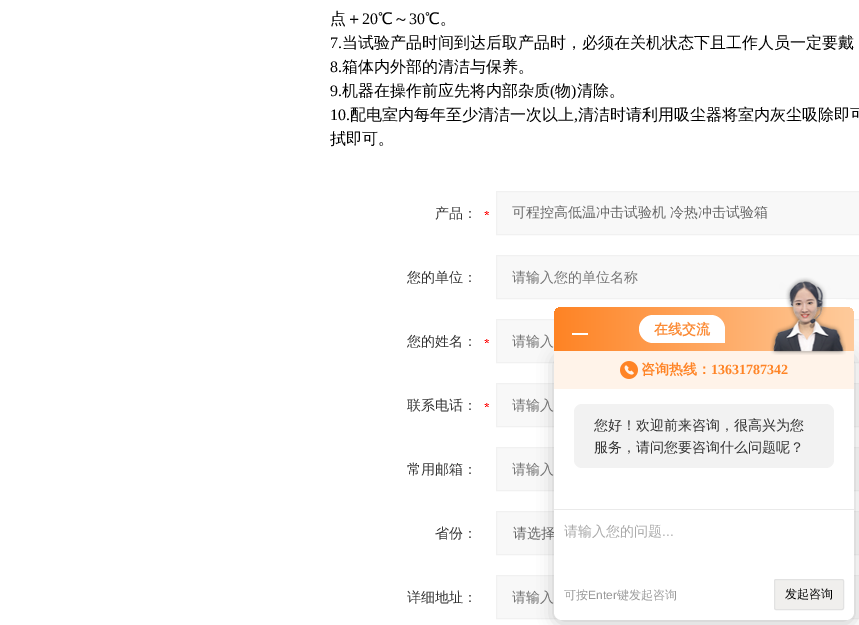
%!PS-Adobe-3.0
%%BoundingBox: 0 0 859 625
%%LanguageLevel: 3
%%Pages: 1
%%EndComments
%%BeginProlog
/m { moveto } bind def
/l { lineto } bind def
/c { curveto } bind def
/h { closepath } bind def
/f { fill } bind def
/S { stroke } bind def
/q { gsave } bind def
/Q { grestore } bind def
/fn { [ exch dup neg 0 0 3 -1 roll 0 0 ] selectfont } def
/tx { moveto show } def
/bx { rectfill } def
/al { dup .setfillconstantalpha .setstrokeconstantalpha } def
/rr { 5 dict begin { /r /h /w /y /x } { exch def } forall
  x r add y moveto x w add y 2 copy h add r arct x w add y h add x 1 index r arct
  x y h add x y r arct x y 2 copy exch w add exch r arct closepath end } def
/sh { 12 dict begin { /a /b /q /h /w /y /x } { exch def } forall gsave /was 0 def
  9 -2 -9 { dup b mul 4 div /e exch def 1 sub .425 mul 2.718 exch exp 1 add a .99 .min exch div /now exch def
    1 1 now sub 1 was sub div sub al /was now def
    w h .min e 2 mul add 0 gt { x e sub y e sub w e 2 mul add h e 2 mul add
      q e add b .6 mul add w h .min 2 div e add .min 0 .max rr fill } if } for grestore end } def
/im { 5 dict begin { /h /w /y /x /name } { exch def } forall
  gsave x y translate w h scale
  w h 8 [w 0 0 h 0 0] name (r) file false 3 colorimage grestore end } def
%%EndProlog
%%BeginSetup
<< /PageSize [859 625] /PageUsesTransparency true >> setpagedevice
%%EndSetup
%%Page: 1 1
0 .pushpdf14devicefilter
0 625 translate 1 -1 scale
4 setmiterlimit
1 setgray
0 0 859 625 bx
/WenQuanYiZenHei-Medium 16 fn
0 setgray
(点＋) 330 24 tx
/LiberationSerif-Regular 16 fn
(20) 362 24 tx
/WenQuanYiZenHei-Medium 16 fn
(℃～) 378 24 tx
/LiberationSerif-Regular 16 fn
(30) 409 24 tx
/WenQuanYiZenHei-Medium 16 fn
(℃。) 425 24 tx
/LiberationSerif-Regular 16 fn
(7.) 330 48 tx
/WenQuanYiZenHei-Medium 16 fn
(当试验产品时间到达后取产品时，必须在关机状态下且工作人员一定要戴) 342 48 tx
/LiberationSerif-Regular 16 fn
(8.) 330 72 tx
/WenQuanYiZenHei-Medium 16 fn
(箱体内外部的清洁与保养。) 342 72 tx
/LiberationSerif-Regular 16 fn
(9.) 330 96 tx
/WenQuanYiZenHei-Medium 16 fn
(机器在操作前应先将内部杂质) 342 96 tx
/LiberationSerif-Regular 16 fn
(\() 550 96 tx
/WenQuanYiZenHei-Medium 16 fn
(物) 555 96 tx
/LiberationSerif-Regular 16 fn
(\)) 571 96 tx
/WenQuanYiZenHei-Medium 16 fn
(清除。) 577 96 tx
/LiberationSerif-Regular 16 fn
(10.) 330 120 tx
/WenQuanYiZenHei-Medium 16 fn
(配电室内每年至少清洁一次以上) 350 120 tx
/LiberationSerif-Regular 16 fn
(,) 574 120 tx
/WenQuanYiZenHei-Medium 16 fn
(清洁时请利用吸尘器将室内灰尘吸除即可) 578 120 tx
(拭即可。) 330 144 tx
(image0.raw) 484 211 5 4 im
/WenQuanYiZenHei-Medium 14 fn
0.2 setgray
(产品：) 435 218 tx
0.973 setgray
496.5 191.5 m 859.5 191.5 l 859.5 234.5 l 496.5 234.5 l h q f Q
0.945 setgray
S
0.4 setgray
(可程控高低温冲击试验机 冷热冲击试验箱) 512 217 tx
0.2 setgray
(您的单位：) 407 282 tx
0.973 setgray
496.5 255.5 m 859.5 255.5 l 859.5 298.5 l 496.5 298.5 l h q f Q
0.945 setgray
S
0.459 setgray
(请输入您的单位名称) 512 282 tx
(image0.raw) 484 339 5 4 im
0.2 setgray
(您的姓名：) 407 346 tx
0.973 setgray
496.5 319.5 m 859.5 319.5 l 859.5 362.5 l 496.5 362.5 l h q f Q
0.945 setgray
S
0.459 setgray
(请输入) 512 346 tx
(image0.raw) 484 403 5 4 im
0.2 setgray
(联系电话：) 407 410 tx
0.973 setgray
496.5 383.5 m 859.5 383.5 l 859.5 426.5 l 496.5 426.5 l h q f Q
0.945 setgray
S
0.459 setgray
(请输入) 512 410 tx
0.2 setgray
(常用邮箱：) 407 474 tx
0.973 setgray
496.5 447.5 m 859.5 447.5 l 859.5 490.5 l 496.5 490.5 l h q f Q
0.945 setgray
S
0.459 setgray
(请输入) 512 474 tx
0.2 setgray
(省份：) 435 538 tx
0.973 setgray
496.5 511.5 m 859.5 511.5 l 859.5 554.5 l 496.5 554.5 l h q f Q
0.945 setgray
S
0.4 setgray
(请选择) 513 538 tx
0.2 setgray
(详细地址：) 407 602 tx
0.973 setgray
496.5 575.5 m 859.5 575.5 l 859.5 618.5 l 496.5 618.5 l h q f Q
0.945 setgray
S
0.459 setgray
(请输入) 512 602 tx
0 setgray
554 355 300 269 8 8 0.2 sh
q 562 307 m 846 307 l 850.5 307 854 310.5 854 315 c 854 351 l 554 351 l 554 315 l 554 310.5 557.5 307 562 307 c h clip newpath
<< /ShadingType 2 /ColorSpace /DeviceRGB /Coords [554 329 854 329] /Extend [true true] /Function << /FunctionType 2 /Domain [0 1] /C0 [1 0.514 0.141] /C1 [0.996 0.796 0.612] /N 1 >> >> shfill Q
1 setgray
572 333 16 2 bx
653 315 m 711 315 l 718.5 315 725 321.5 725 329 c 725 343 l 653 343 l 645.5 343 639 336.5 639 329 c 639 321.5 645.5 315 653 315 c h f
/WenQuanYiZenHei-Bold 14 fn
0.984 0.545 0.212 setrgbcolor
(在线交流) 654 334 tx
1 setgray
554 351 m 854 351 l 854 612 l 854 616.5 850.5 620 846 620 c 562 620 l 557.5 620 554 616.5 554 612 c h f
1 0.953 0.914 setrgbcolor
554 351 300 38 bx
(image1.raw) 770 277 76 78 im
(image2.raw) 620 361 18 18 im
1 0.518 0.149 setrgbcolor
(咨询热线：) 641 374 tx
/LiberationSerif-Bold 14 fn
(13631787342) 711 374 tx
0.949 setgray
574 404 260 64 8 rr f
/WenQuanYiZenHei-Medium 14 fn
0.2 setgray
(您好！欢迎前来咨询，很高兴为您) 594 430 tx
(服务，请问您要咨询什么问题呢？) 594 452 tx
0.918 setgray
554 509 300 1 bx
0.667 setgray
(请输入您的问题) 564 536 tx
/LiberationSans-Regular 14 fn
(...) 662 536 tx
/WenQuanYiZenHei-Medium 12 fn
0.6 setgray
(可按) 564 599 tx
/LiberationSans-Regular 12 fn
(Enter) 588 599 tx
/WenQuanYiZenHei-Medium 12 fn
(键发起咨询) 617 599 tx
0.941 0.937 0.929 setrgbcolor
774.5 579.5 69 30 1.5 rr q f Q
0.886 setgray
S
0 setgray
(发起咨询) 785 598 tx
.poppdf14devicefilter showpage
%%EOF
